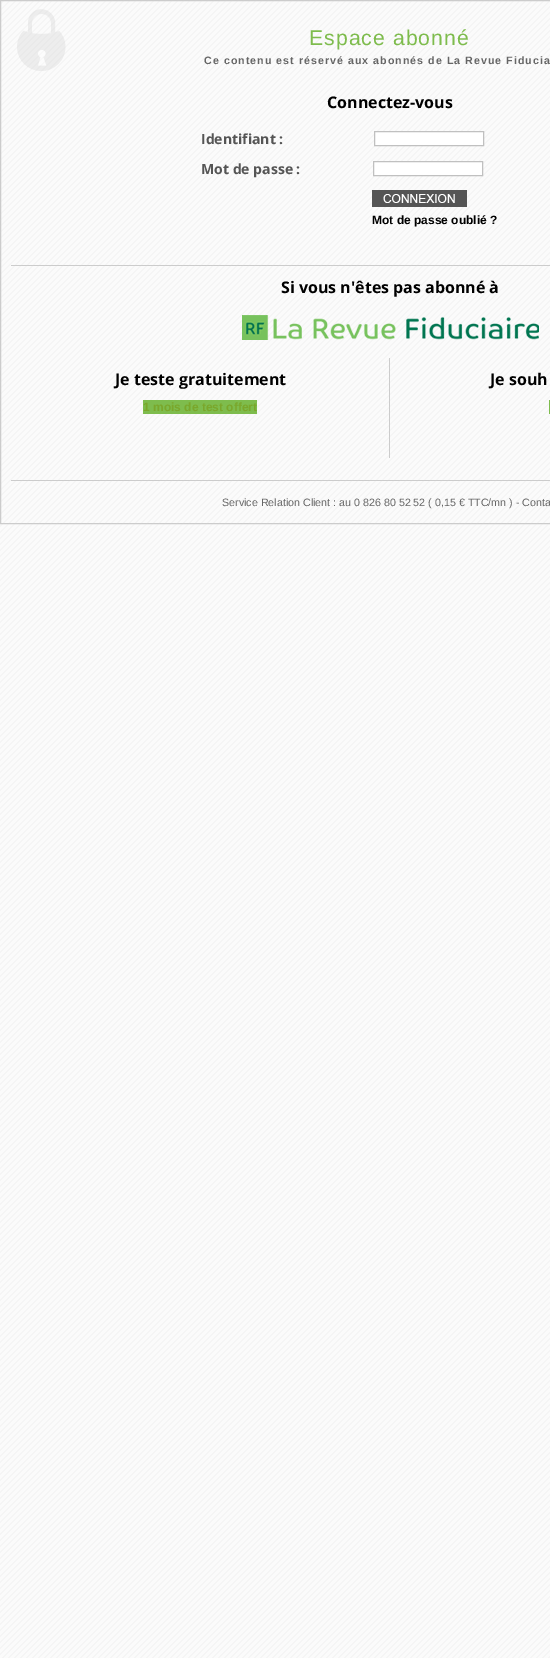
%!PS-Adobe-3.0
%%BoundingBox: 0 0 550 1658
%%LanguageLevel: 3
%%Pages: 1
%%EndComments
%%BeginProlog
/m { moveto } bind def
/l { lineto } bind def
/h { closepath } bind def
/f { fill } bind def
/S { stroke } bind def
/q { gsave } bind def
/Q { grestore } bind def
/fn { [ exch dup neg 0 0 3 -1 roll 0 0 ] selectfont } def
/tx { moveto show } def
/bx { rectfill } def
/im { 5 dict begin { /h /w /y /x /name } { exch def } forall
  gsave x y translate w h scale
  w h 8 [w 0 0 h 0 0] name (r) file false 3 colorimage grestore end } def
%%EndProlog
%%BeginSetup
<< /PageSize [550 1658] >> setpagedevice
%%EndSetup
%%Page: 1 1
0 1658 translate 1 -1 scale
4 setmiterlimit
1 setgray
0 0 550 1658 bx
(image0.raw) 0 1 550 1657 im
(image1.raw) 17 9 49 62 im
0.8 setgray
0.5 0.5 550 523 rectstroke
/LiberationSans-Regular 21.25 fn
0.494 0.737 0.302 setrgbcolor
309 45 m 1 0 (Espace abonné) ashow
/LiberationSans-Bold 10.7 fn
0.4 setgray
204 64 m 1 0 (Ce contenu est réservé aux abonnés de La Revue Fiducia) ashow
/OpenSans-Bold 16 fn
0 setgray
(Connectez-vous) 327 108 tx
/OpenSans-Bold 14 fn
0.333 setgray
(Identifiant :) 201 144 tx
1 setgray
374.5 131.5 m 483.5 131.5 l 483.5 145.5 l 374.5 145.5 l h q f Q
0.753 setgray
S
0.333 setgray
(Mot de passe :) 201 174 tx
1 setgray
373.5 161.5 m 482.5 161.5 l 482.5 175.5 l 373.5 175.5 l h q f Q
0.753 setgray
S
(image2.raw) 372 190 95 17 im
/LiberationSans-Bold 12 fn
0 setgray
(Mot de passe oublié ?) 372 224 tx
0.8 setgray
11 265 539 1 bx
/OpenSans-Bold 16 fn
0 setgray
(Si vous n'êtes pas abonné à) 281 293 tx
(image3.raw) 242 315 297 25 im
(Je teste gratuitement) 115 385 tx
0.494 0.737 0.302 setrgbcolor
143 400 114 14 bx
/LiberationSans-Bold 12 fn
0.478 0.655 0.169 setrgbcolor
(1 mois de test offert) 143 411 tx
0.8 setgray
389 358 1 100 bx
/OpenSans-Bold 16 fn
0 setgray
(Je souh) 490 385 tx
0.494 0.737 0.302 setrgbcolor
549 400 1 14 bx
0.8 setgray
11 480 539 1 bx
/LiberationSans-Regular 10.7 fn
0.4 setgray
(Service Relation Client : au 0 826 80 52 52 \( 0,15 € TTC/mn \) - Conta) 222 506 tx
showpage
%%EOF
